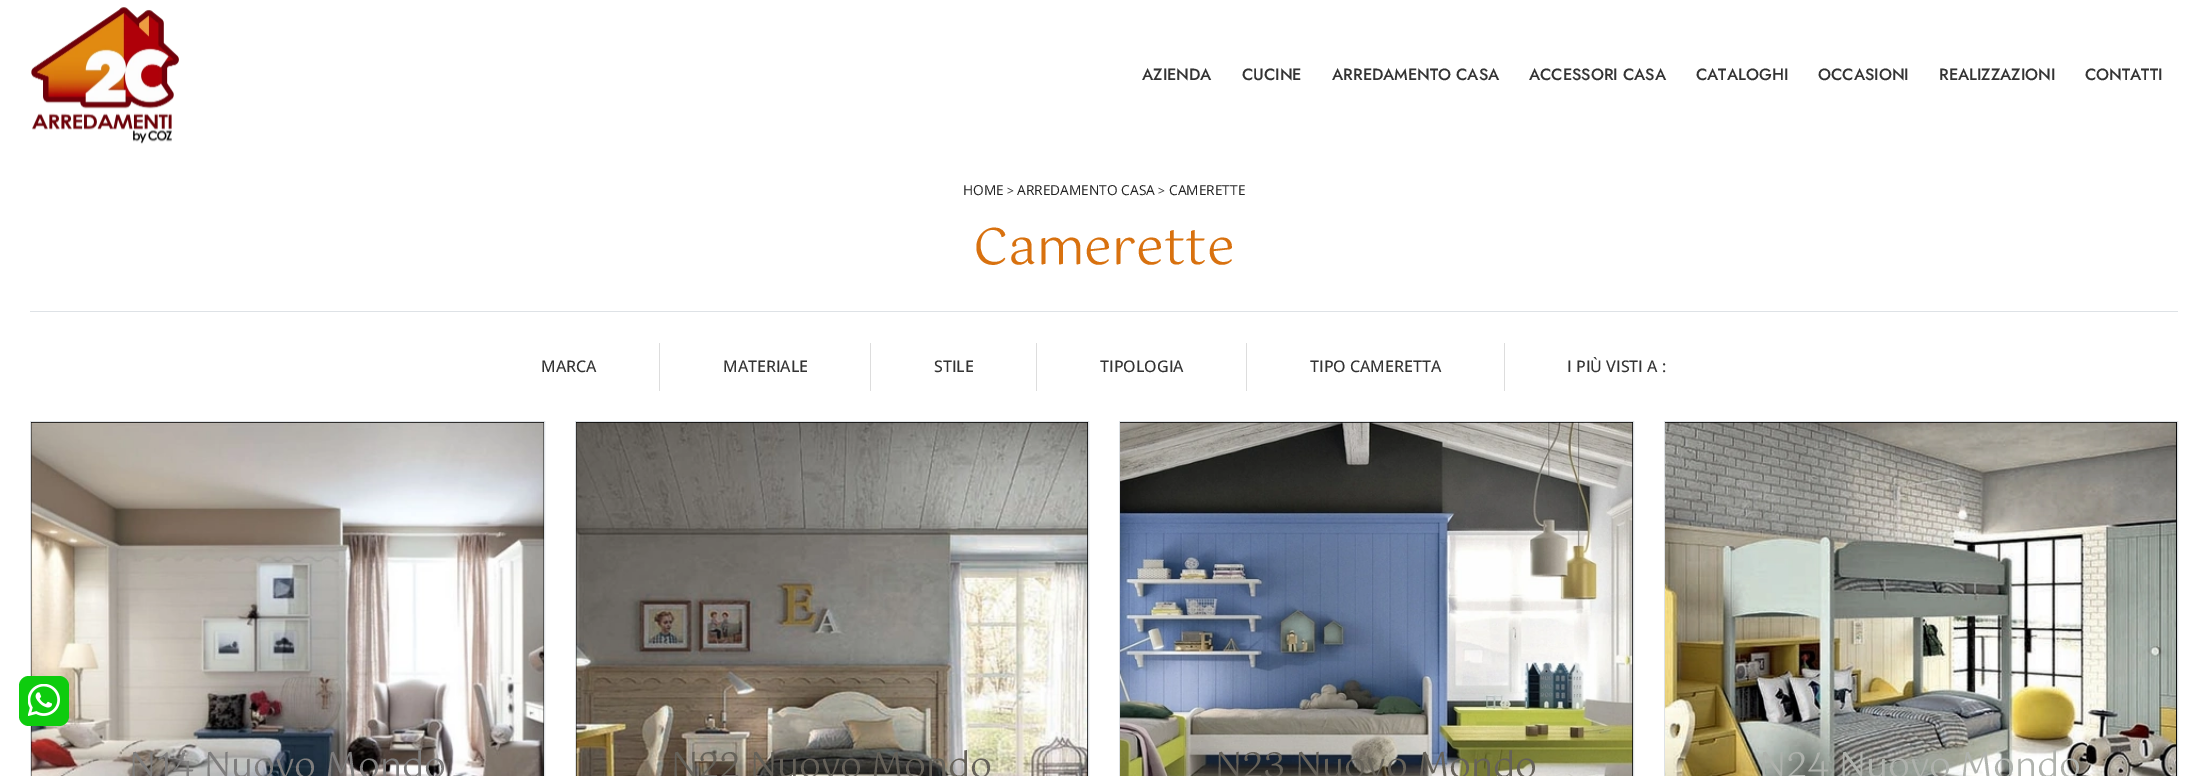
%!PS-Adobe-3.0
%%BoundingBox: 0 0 2207 776
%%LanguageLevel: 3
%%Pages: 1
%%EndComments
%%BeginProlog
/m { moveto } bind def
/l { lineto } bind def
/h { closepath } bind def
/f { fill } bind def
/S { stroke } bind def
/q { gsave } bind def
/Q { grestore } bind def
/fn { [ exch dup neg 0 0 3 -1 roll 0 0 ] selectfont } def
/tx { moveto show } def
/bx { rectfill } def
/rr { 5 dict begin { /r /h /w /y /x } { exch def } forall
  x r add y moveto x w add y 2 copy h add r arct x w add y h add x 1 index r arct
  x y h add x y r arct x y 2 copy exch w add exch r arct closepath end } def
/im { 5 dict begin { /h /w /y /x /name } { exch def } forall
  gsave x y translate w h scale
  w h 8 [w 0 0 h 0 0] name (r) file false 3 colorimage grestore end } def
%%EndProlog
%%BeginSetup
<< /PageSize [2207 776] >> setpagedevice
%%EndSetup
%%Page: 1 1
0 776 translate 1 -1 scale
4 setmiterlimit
1 setgray
0 0 2207 776 bx
(image0.raw) 31 7 148 137 im
/Jost-Medium 16.25 fn
0.2 setgray
(AZIENDA) 1142 80 tx
(CUCINE) 1242 80 tx
(ARREDAMENTO CASA) 1332 80 tx
(ACCESSORI CASA) 1529 80 tx
(CATALOGHI) 1696 80 tx
(OCCASIONI) 1818 80 tx
(REALIZZAZIONI) 1939 80 tx
(CONTATTI) 2085 80 tx
0.871 0.886 0.902 setrgbcolor
30 311 2148 1 bx
/OpenSans-Regular 13.75 fn
0.133 setgray
(HOME) 963 195 tx
/OpenSans-Regular 12 fn
0.2 setgray
(>) 1007 195 tx
/OpenSans-Regular 13.75 fn
0.133 setgray
(ARREDAMENTO CASA) 1017 195 tx
/OpenSans-Regular 12 fn
0.2 setgray
(>) 1158 195 tx
/OpenSans-Regular 13.75 fn
0.133 setgray
(CAMERETTE) 1169 195 tx
/Gotu-Regular 50 fn
0.847 0.443 0.059 setrgbcolor
(Camerette) 973 264 tx
0 setgray
30.5 421.5 m 544.5 421.5 l 544.5 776.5 l 30.5 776.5 l h q f Q
0.871 0.886 0.902 setrgbcolor
S
(image2.raw) 31 422 513 354 im
0.055 0.8 0.055 setrgbcolor
19 676 50 50 10 rr f
(image1.raw) 28 684 32 32 im
0.867 setgray
659 343 1 48 bx
/OpenSans-Medium 16 fn
0.2 setgray
(MARCA) 541 372 tx
0.867 setgray
870 343 1 48 bx
0.2 setgray
(MATERIALE) 723 372 tx
0.867 setgray
1036 343 1 48 bx
0.2 setgray
(STILE) 934 372 tx
0.867 setgray
1246 343 1 48 bx
0.2 setgray
(TIPOLOGIA) 1100 372 tx
0.867 setgray
1504 343 1 48 bx
0.2 setgray
(TIPO CAMERETTA) 1310 372 tx
(I PIÙ VISTI A :) 1567 372 tx
/Gotu-Regular 35 fn
0.494 0.49 0.49 setrgbcolor
(N14 Nuovo Mondo) 129 777 tx
0 setgray
575.5 421.5 m 1088.5 421.5 l 1088.5 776.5 l 575.5 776.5 l h q f Q
0.871 0.886 0.902 setrgbcolor
S
(image3.raw) 576 422 512 354 im
0.396 0.38 0.349 setrgbcolor
(N22 Nuovo Mondo) 671 777 tx
0 setgray
1119.5 421.5 m 1633.5 421.5 l 1633.5 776.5 l 1119.5 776.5 l h q f Q
0.871 0.886 0.902 setrgbcolor
S
(image4.raw) 1120 422 513 354 im
0.396 0.38 0.349 setrgbcolor
(N23 Nuovo Mondo) 1215 777 tx
0 setgray
1664.5 421.5 m 2177.5 421.5 l 2177.5 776.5 l 1664.5 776.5 l h q f Q
0.871 0.886 0.902 setrgbcolor
S
(image5.raw) 1665 422 512 354 im
0.686 0.698 0.678 setrgbcolor
(N24 Nuovo Mondo) 1759 777 tx
showpage
%%EOF
